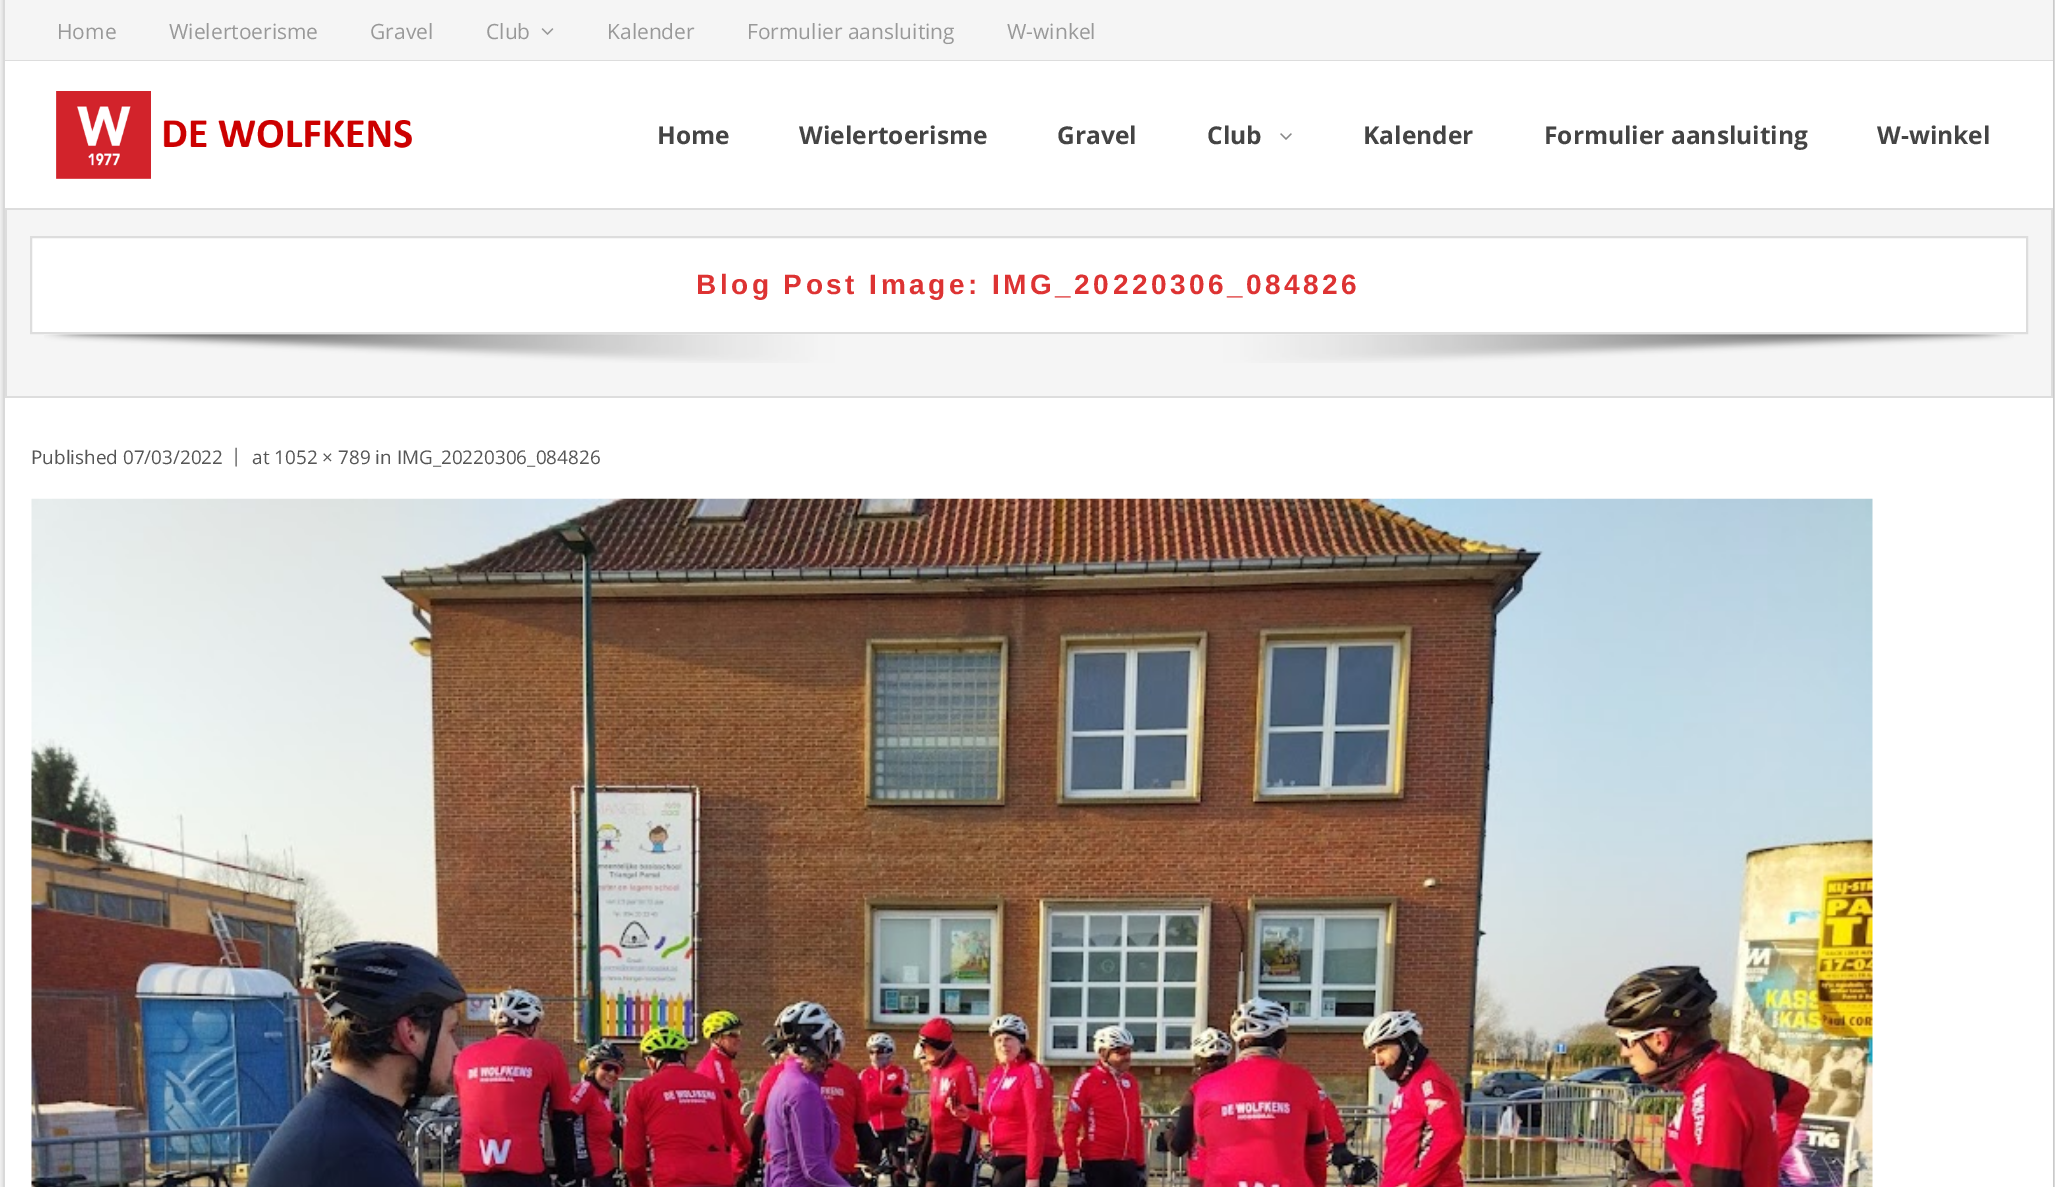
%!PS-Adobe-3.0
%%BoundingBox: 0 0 2055 1187
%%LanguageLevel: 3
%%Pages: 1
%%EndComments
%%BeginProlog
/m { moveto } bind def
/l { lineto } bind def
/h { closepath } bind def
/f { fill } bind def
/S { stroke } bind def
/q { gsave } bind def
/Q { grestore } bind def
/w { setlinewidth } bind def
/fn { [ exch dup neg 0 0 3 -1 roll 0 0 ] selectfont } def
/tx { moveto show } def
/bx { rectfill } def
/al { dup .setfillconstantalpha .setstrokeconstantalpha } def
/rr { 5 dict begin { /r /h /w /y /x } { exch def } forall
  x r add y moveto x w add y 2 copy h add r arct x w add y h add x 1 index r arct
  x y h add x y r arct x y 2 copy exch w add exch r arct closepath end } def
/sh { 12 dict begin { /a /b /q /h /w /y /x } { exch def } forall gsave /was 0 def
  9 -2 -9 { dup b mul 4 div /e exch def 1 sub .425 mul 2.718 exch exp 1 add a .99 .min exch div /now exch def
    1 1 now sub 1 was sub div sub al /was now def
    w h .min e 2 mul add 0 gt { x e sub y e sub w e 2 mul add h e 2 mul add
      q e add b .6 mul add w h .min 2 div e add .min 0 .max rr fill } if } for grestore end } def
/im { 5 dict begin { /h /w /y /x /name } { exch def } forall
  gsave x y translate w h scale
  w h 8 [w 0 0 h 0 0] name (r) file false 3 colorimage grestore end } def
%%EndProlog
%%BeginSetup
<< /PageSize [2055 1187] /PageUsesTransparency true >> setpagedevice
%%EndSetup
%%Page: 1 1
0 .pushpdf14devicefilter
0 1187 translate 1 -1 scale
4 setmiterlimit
1 setgray
0 0 2055 1187 bx
0 setgray
4 -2 2051 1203 0 4.5 0.3 sh
1 setgray
5 398 2048 789 bx
0.867 setgray
5 208 2048 2 bx
0.961 setgray
5 0 2048 60 bx
0.867 setgray
5 60 2048 1 bx
/OpenSans-Regular 21 fn
0.6 setgray
(Home) 57 39 tx
(Wielertoerisme) 169 39 tx
(Gravel) 370 39 tx
(Club) 486 39 tx
(image0.raw) 541 28 13 7 im
(Kalender) 607 39 tx
(Formulier aansluiting) 747 39 tx
(W-winkel) 1007 39 tx
1 setgray
5 61 2048 147 bx
(image1.raw) 56 91 356 88 im
/OpenSans-Bold 24.5 fn
0.267 setgray
(Home) 657 144 tx
(Wielertoerisme) 799 144 tx
(Gravel) 1057 144 tx
(Club) 1207 144 tx
(image2.raw) 1280 133 12 7 im
(Kalender) 1363 144 tx
(Formulier aansluiting) 1544 144 tx
(W-winkel) 1877 144 tx
0.961 setgray
7 210 2044 186 bx
0.867 setgray
2051 210 2 187 bx
5 396 2048 2 bx
5 210 2 187 bx
1 setgray
31 237 m 2027 237 l 2027 333 l 31 333 l h q f Q
0.867 setgray
2 w
S
/LiberationSans-Bold 28 fn
0.867 0.2 0.2 setrgbcolor
696 294 m 3.5 0 (Blog Post Image: IMG_20220306_084826) ashow
(image3.raw) 44 334 1970 29 im
/OpenSans-Regular 18.9 fn
0.333 setgray
(Published 07/03/2022) 31 464 tx
(|) 231 462 tx
(at 1052 × 789 in IMG_20220306_084826) 252 464 tx
(image4.raw) 31 498 1842 689 im
.poppdf14devicefilter showpage
%%EOF
